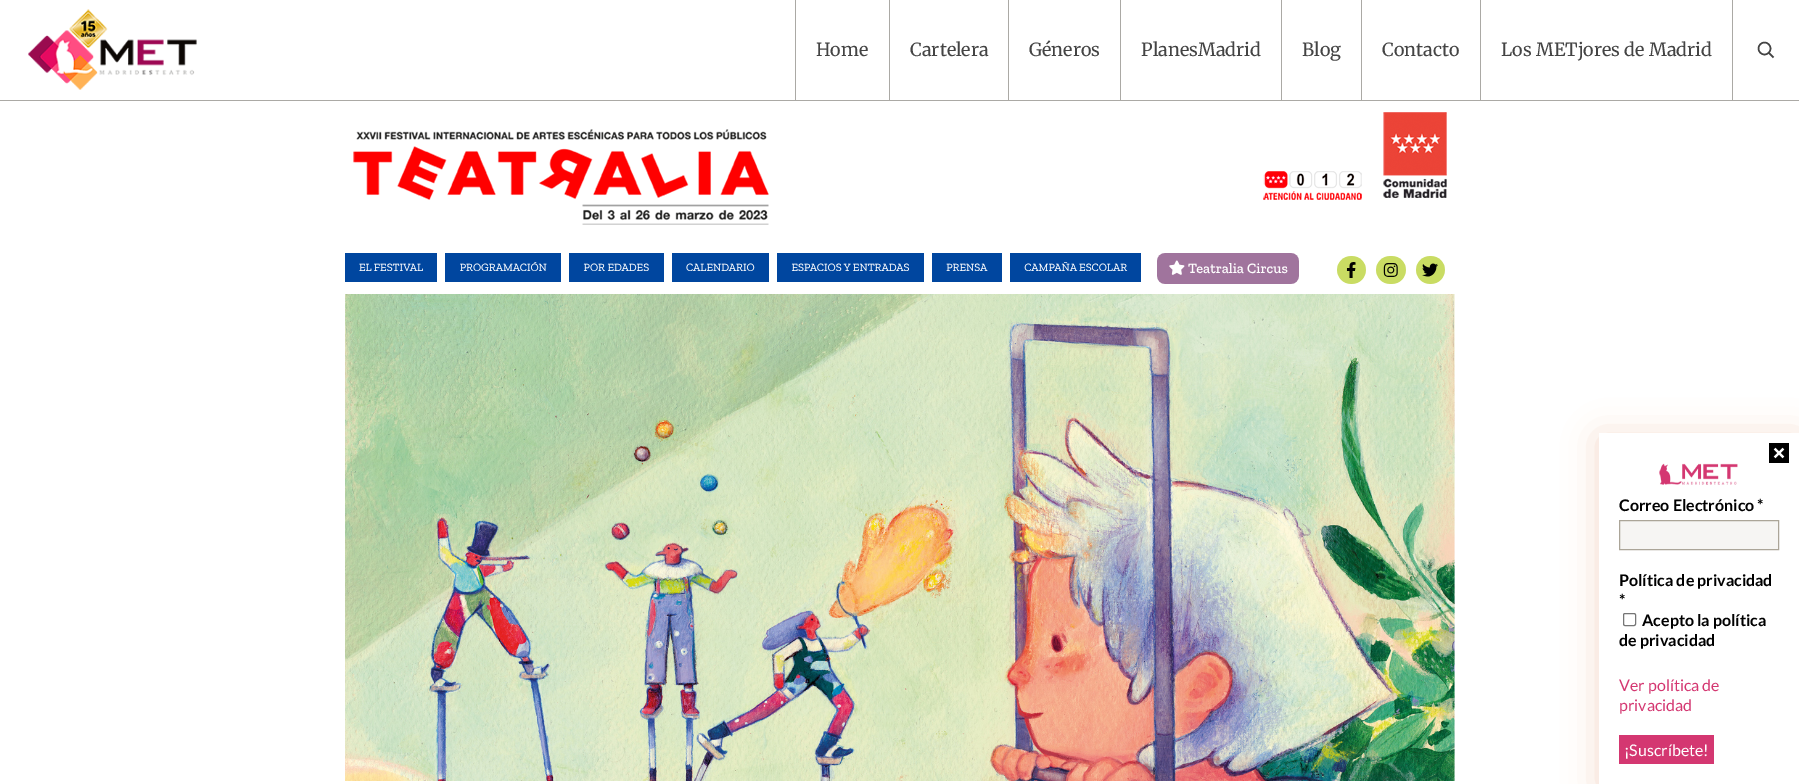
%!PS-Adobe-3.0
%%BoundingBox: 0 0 1799 784
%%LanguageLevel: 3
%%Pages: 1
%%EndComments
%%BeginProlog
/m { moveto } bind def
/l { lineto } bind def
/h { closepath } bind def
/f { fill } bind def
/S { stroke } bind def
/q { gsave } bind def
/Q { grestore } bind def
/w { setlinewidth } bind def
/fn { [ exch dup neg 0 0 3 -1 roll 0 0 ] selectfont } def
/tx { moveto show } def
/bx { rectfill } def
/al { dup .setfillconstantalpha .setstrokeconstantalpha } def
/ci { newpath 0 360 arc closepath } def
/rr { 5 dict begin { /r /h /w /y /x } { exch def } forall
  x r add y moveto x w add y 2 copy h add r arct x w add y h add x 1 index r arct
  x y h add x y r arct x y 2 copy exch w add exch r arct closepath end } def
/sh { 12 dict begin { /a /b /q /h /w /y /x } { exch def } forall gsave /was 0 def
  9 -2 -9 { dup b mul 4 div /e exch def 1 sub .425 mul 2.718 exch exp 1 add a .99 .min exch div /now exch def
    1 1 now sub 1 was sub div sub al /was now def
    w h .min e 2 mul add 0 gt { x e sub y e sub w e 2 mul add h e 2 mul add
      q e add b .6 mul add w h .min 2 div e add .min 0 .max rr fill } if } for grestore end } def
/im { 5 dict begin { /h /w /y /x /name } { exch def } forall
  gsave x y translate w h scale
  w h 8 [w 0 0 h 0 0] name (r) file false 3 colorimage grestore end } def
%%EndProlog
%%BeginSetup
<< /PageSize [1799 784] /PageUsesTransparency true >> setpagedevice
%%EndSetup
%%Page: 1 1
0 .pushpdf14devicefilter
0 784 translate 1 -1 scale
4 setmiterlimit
1 setgray
0 0 1799 784 bx
0.671 0.663 0.647 setrgbcolor
0 100 1799 1 bx
(image0.raw) 28 9 169 81 im
889 0 1 100 bx
795 0 1 100 bx
/Merriweather-Regular 18 fn
0.267 setgray
(Home) 816 56 tx
0.671 0.663 0.647 setrgbcolor
1008 0 1 100 bx
0.267 setgray
(Cartelera) 910 56 tx
0.671 0.663 0.647 setrgbcolor
1120 0 1 100 bx
0.267 setgray
(Géneros) 1029 56 tx
0.671 0.663 0.647 setrgbcolor
1281 0 1 100 bx
0.267 setgray
(PlanesMadrid) 1141 56 tx
0.671 0.663 0.647 setrgbcolor
1361 0 1 100 bx
0.267 setgray
(Blog) 1302 56 tx
0.671 0.663 0.647 setrgbcolor
1480 0 1 100 bx
0.267 setgray
(Contacto) 1382 56 tx
(Los METjores de Madrid) 1501 56 tx
0.671 0.663 0.647 setrgbcolor
1732 0 1 100 bx
0.267 setgray
1.5 w
1764.5 48.5 6 ci S
1768.5 52.5 m 1773.5 57.5 l S
(image1.raw) 345 112 1110 669 im
q
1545 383 m 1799 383 l 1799 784 l 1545 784 l h 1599 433 m 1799 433 l 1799 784 l 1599 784 l h eoclip newpath
0.765 0.255 0.008 setrgbcolor
1599 437 200 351 0 17.5 0.2 sh
Q
(image2.raw) 1769 443 20 20 im
(image3.raw) 1659 463 79 22 im
/Lato-Bold 16 fn
0 setgray
(Correo Electrónico *) 1619 511 tx
0.965 0.961 0.953 setrgbcolor
1619.5 520.5 m 1778.5 520.5 l 1778.5 549.5 l 1619.5 549.5 l h q f Q
0.671 0.647 0.596 setrgbcolor
1 w
S
0 setgray
(Política de privacidad) 1619 586 tx
(*) 1619 606 tx
0.463 setgray
1623.5 613.5 12 12 1.5 rr S
0 setgray
(Acepto la política) 1642 626 tx
(de privacidad) 1619 646 tx
/Lato-Regular 16 fn
0.831 0.216 0.443 setrgbcolor
(Ver política de) 1619 691 tx
(privacidad) 1619 711 tx
1619 735 95 29 bx
1 setgray
(¡Suscríbete!) 1624 756 tx
.poppdf14devicefilter showpage
%%EOF
